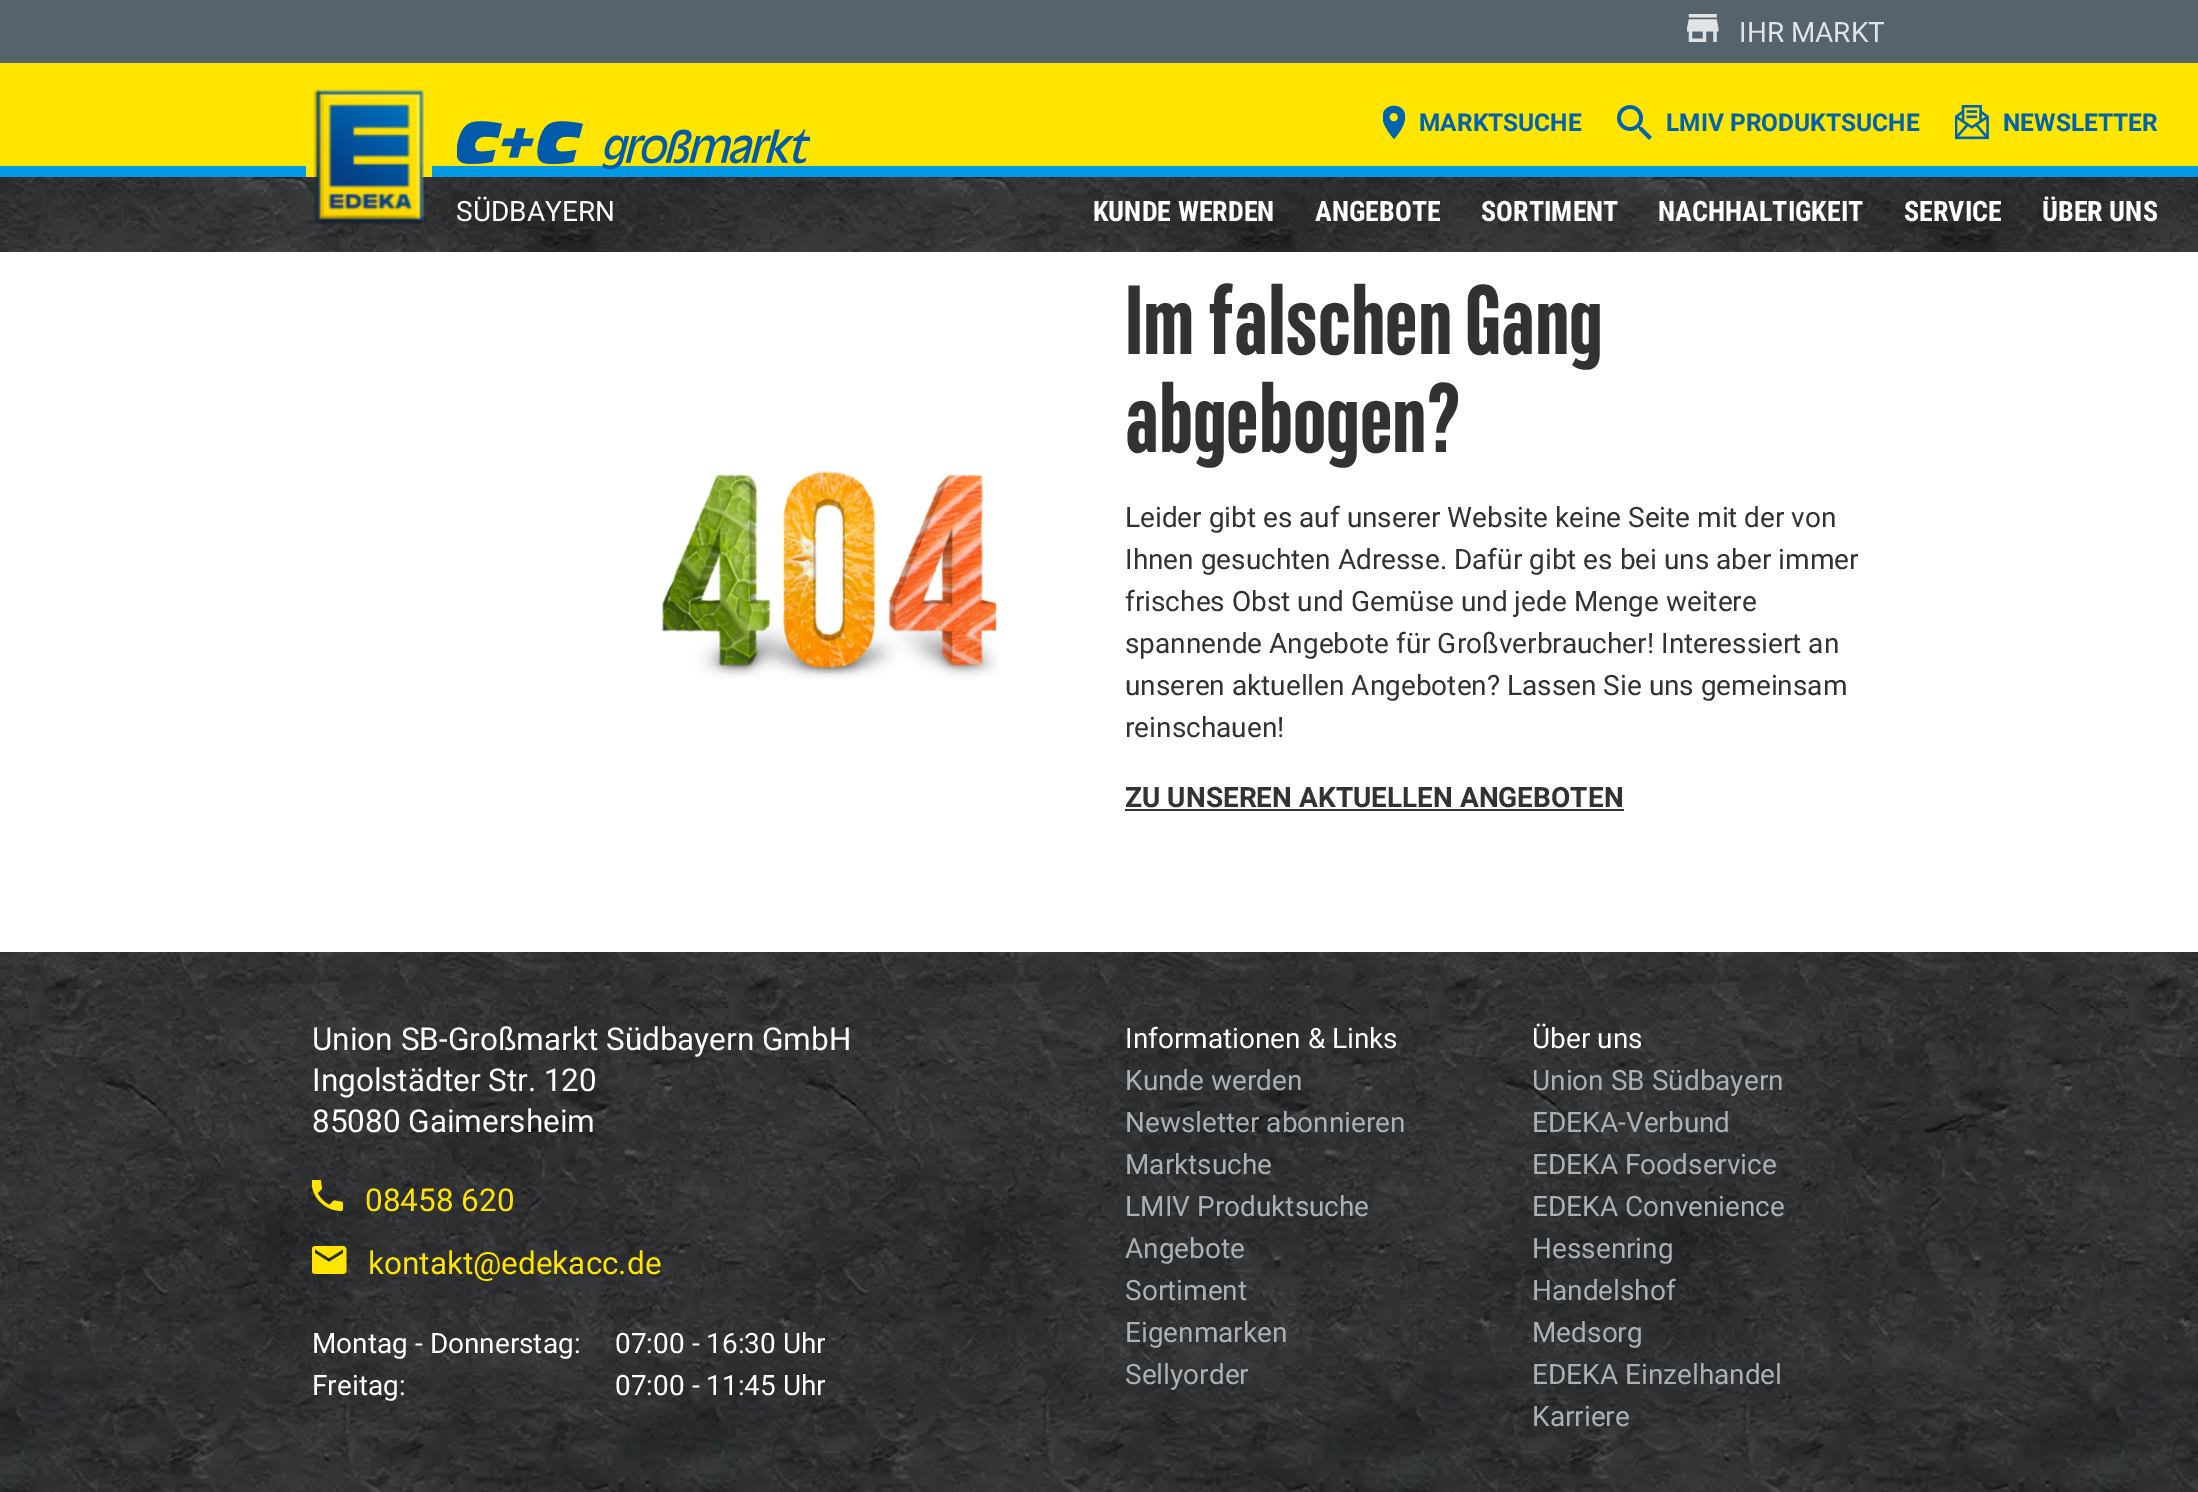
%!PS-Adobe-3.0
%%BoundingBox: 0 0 2198 1492
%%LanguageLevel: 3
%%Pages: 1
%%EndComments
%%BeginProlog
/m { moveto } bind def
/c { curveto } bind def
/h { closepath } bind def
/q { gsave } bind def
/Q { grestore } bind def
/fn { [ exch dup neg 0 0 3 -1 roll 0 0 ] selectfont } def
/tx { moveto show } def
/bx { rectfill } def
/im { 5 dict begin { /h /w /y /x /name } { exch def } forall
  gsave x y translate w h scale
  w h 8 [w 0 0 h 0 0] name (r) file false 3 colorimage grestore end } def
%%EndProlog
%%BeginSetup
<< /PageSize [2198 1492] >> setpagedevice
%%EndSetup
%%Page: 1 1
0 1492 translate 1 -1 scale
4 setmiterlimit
1 setgray
0 0 2198 1492 bx
(image0.raw) 0 952 2198 540 im
0.337 0.388 0.427 setrgbcolor
0 0 2198 63 bx
(image1.raw) 1687 14 32 28 im
/Roboto-Regular 28 fn
0.882 0.894 0.902 setrgbcolor
(IHR MARKT) 1739 42 tx
1 0.898 0 setrgbcolor
0 63 2198 103 bx
q
1383 105 22 35 rectclip
0 0.388 0.686 setrgbcolor
1382.5 117.5 m 1382.5 126 1394 139 1394 139 c 1424.5 104 1382.5 96.5 1382.5 117.5 c h 1389.5 117 m 1389.5 111.5 1398 111.5 1398 117 c 1398 123 1389.5 123 1389.5 117 c h eofill
Q
/Roboto-Bold 24.5 fn
0 0.388 0.686 setrgbcolor
(MARKTSUCHE) 1419 131 tx
(image2.raw) 1617 105 35 35 im
(LMIV PRODUKTSUCHE) 1666 131 tx
(image3.raw) 1955 105 34 35 im
(NEWSLETTER) 2003 131 tx
(image4.raw) 0 177 2198 75 im
/RobotoCondensed-Bold 28 fn
1 setgray
(KUNDE WERDEN) 1093 221 tx
(ANGEBOTE) 1315 221 tx
(SORTIMENT) 1481 221 tx
(NACHHALTIGKEIT) 1658 221 tx
(SERVICE) 1904 221 tx
(ÜBER UNS) 2042 221 tx
0 0.6 0.898 setrgbcolor
0 166 2198 11 bx
1 0.898 0 setrgbcolor
306 166 11 11 bx
422 166 10 11 bx
(image5.raw) 313 89 111 136 im
(image6.raw) 457 121 353 49 im
/Roboto-Regular 28 fn
1 setgray
(SÜDBAYERN) 456 221 tx
(image7.raw) 661 470 338 209 im
/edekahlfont-Bold 98 fn
0.188 0.196 0.2 setrgbcolor
(Im falschen Gang) 1125 354 tx
(abgebogen?) 1125 452 tx
/Roboto-Regular 28 fn
(Leider gibt es auf unserer Website keine Seite mit der von) 1125 527 tx
(Ihnen gesuchten Adresse. Dafür gibt es bei uns aber immer) 1125 569 tx
(frisches Obst und Gemüse und jede Menge weitere) 1125 611 tx
(spannende Angebote für Großverbraucher! Interessiert an) 1125 653 tx
(unseren aktuellen Angeboten? Lassen Sie uns gemeinsam) 1125 695 tx
(reinschauen!) 1125 737 tx
/Roboto-Bold 28 fn
(ZU UNSEREN AKTUELLEN ANGEBOTEN) 1125 807 tx
1125 809 499 2 bx
/Roboto-Regular 31.5 fn
1 setgray
(Union SB-Großmarkt Südbayern GmbH) 312 1050 tx
(Ingolstädter Str. 120) 312 1091 tx
(85080 Gaimersheim) 312 1132 tx
(image8.raw) 312 1180 31 31 im
1 0.898 0 setrgbcolor
(08458 620) 365 1211 tx
(image9.raw) 312 1246 35 28 im
(kontakt@edekacc.de) 368 1274 tx
/Roboto-Regular 28 fn
1 setgray
(Montag - Donnerstag:) 312 1353 tx
(07:00 - 16:30 Uhr) 615 1353 tx
(Freitag:) 312 1395 tx
(07:00 - 11:45 Uhr) 615 1395 tx
(Informationen & Links) 1125 1048 tx
0.667 0.694 0.714 setrgbcolor
(Kunde werden) 1125 1090 tx
(Newsletter abonnieren) 1125 1132 tx
(Marktsuche) 1125 1174 tx
(LMIV Produktsuche) 1125 1216 tx
(Angebote) 1125 1258 tx
(Sortiment) 1125 1300 tx
(Eigenmarken) 1125 1342 tx
(Sellyorder) 1125 1384 tx
1 setgray
(Über uns) 1532 1048 tx
0.667 0.694 0.714 setrgbcolor
(Union SB Südbayern) 1532 1090 tx
(EDEKA-Verbund) 1532 1132 tx
(EDEKA Foodservice) 1532 1174 tx
(EDEKA Convenience) 1532 1216 tx
(Hessenring) 1532 1258 tx
(Handelshof) 1532 1300 tx
(Medsorg) 1532 1342 tx
(EDEKA Einzelhandel) 1532 1384 tx
(Karriere) 1532 1426 tx
showpage
%%EOF
